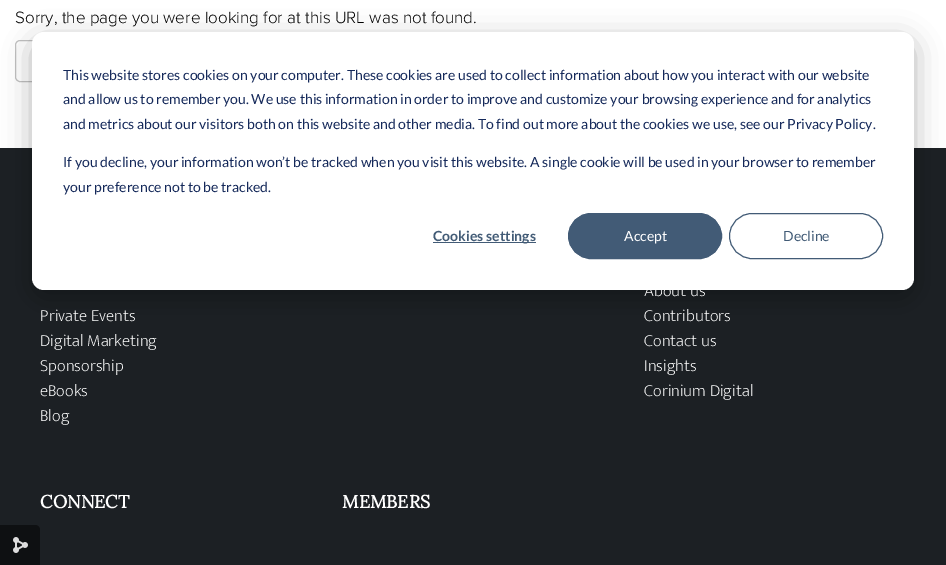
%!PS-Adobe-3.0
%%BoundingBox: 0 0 946 565
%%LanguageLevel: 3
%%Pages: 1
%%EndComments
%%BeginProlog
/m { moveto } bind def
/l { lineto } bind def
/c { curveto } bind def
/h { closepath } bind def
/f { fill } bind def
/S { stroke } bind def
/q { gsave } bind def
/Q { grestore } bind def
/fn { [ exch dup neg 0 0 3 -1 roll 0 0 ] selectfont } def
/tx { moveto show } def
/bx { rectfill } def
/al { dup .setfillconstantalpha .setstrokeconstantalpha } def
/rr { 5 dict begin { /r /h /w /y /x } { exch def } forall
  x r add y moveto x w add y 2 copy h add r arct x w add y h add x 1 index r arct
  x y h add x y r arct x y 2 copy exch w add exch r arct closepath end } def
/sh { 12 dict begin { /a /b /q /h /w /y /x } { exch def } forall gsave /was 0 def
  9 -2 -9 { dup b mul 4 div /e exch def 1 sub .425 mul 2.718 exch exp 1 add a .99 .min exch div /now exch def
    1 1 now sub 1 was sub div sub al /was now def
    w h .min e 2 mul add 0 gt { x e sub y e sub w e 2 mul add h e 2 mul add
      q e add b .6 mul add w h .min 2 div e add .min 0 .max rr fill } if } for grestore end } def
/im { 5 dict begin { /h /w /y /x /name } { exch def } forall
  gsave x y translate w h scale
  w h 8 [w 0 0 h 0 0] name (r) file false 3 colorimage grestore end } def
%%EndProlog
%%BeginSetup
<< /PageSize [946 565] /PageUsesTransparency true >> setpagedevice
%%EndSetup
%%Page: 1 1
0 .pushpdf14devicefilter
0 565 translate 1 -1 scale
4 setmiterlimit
1 setgray
0 0 946 565 bx
/ProximaNova-Light 17 fn
0 setgray
(Sorry, the page you were looking for at this URL was not found.) 15 23 tx
0.757 setgray
15.5 40.5 699 41 4.5 rr S
0.11 0.125 0.141 setrgbcolor
0 148 946 417 bx
0 setgray
32 40 882 258 12 14 0.28 sh
1 setgray
32 32 882 258 12 rr f
/Lato-Regular 14 fn
0.082 0.161 0.353 setrgbcolor
(This website stores cookies on your computer. These cookies are used to collect information about how you interact with our website) 63 80 tx
(and allow us to remember you. We use this information in order to improve and customize your browsing experience and for analytics) 63 104 tx
(and metrics about our visitors both on this website and other media. To find out more about the cookies we use, see our Privacy Policy.) 63 129 tx
(If you decline, your information won’t be tracked when you visit this website. A single cookie will be used in your browser to remember) 63 167 tx
(your preference not to be tracked.) 63 192 tx
0.259 0.357 0.463 setrgbcolor
433 242 103 1 bx
/Lato-Bold 14 fn
(Cookies settings) 433 241 tx
568.5 213.5 153 45 22.5 rr q f Q
S
/Lato-Regular 14 fn
1 setgray
(Accept) 624 241 tx
0.259 0.357 0.463 setrgbcolor
729.5 213.5 153 45 22.5 rr S
(Decline) 783 241 tx
/EkMukta-ExtraLight 17 fn
1 setgray
(Private Events) 40 321 tx
(Digital Marketing) 40 346 tx
(Sponsorship) 40 371 tx
(eBooks) 40 396 tx
(Blog) 40 421 tx
(About us) 644 296 tx
(Contributors) 644 321 tx
(Contact us) 644 346 tx
(Insights) 644 371 tx
(Corinium Digital) 644 396 tx
/Lora-Bold 18 fn
(CONNECT) 40 508 tx
(MEMBERS) 342 508 tx
0.055 0.063 0.071 setrgbcolor
0 525 m 35 525 l 38 525 40 527 40 530 c 40 565 l 0 565 l h f
(image0.raw) 13 537 15 16 im
.poppdf14devicefilter showpage
%%EOF
